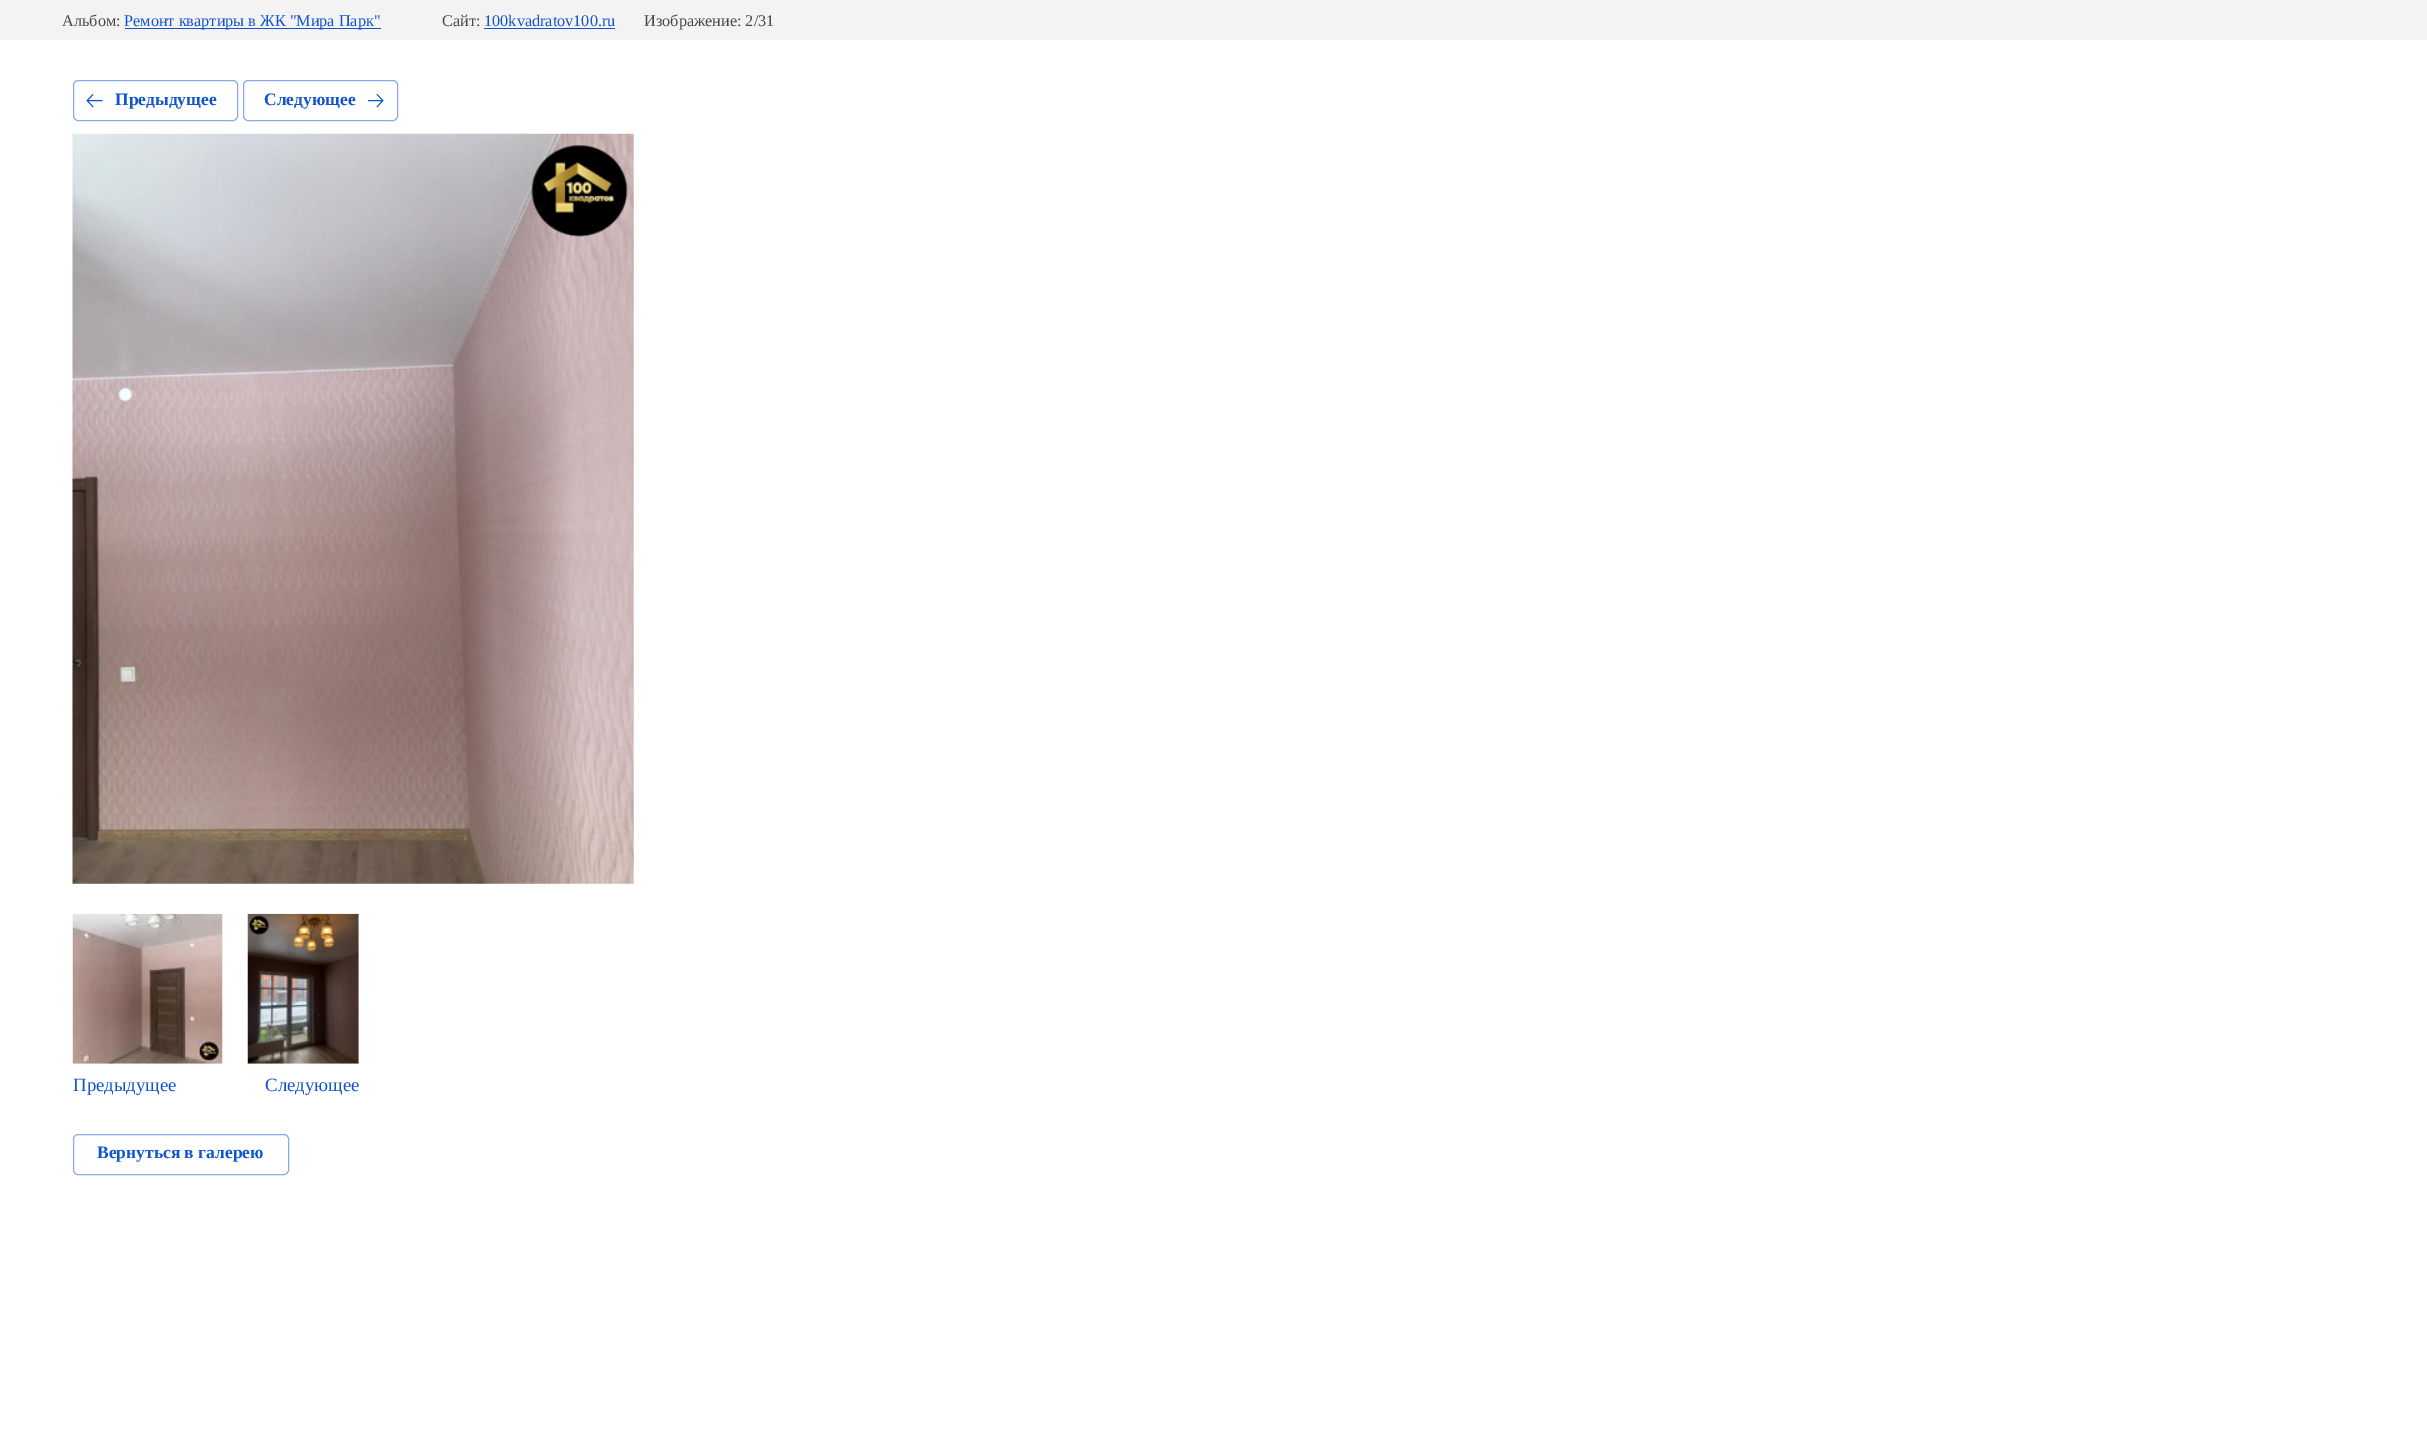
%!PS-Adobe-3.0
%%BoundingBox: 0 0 2427 1431
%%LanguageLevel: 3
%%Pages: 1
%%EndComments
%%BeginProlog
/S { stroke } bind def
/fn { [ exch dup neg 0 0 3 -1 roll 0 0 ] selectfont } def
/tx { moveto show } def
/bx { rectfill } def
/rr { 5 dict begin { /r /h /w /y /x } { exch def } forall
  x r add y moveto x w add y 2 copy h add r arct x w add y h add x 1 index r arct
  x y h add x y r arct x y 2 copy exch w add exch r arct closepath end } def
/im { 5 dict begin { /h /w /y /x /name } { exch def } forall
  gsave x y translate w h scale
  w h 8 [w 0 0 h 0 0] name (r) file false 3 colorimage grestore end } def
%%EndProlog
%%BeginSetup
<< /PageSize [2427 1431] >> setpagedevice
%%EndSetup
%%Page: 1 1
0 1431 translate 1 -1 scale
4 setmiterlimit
1 setgray
0 0 2427 1431 bx
0.953 setgray
0 0 2427 40 bx
/LiberationSerif-Regular 16.25 fn
0.282 setgray
(Альбом:) 62 26 tx
0.067 0.333 0.8 setrgbcolor
125 28 256 1 bx
(Ремонт квартиры в ЖК "Мира Парк") 124 26 tx
0.282 setgray
(Сайт:) 442 26 tx
0.067 0.333 0.8 setrgbcolor
(100kvadratov100.ru) 484 26 tx
484 28 131 1 bx
0.282 setgray
(Изображение: 2/31) 644 26 tx
0.533 0.667 0.902 setrgbcolor
73.5 80.5 164 40 4.5 rr S
(image0.raw) 86 94 17 14 im
/LiberationSerif-Bold 17.5 fn
0.067 0.333 0.8 setrgbcolor
(Предыдущее) 115 105 tx
0.533 0.667 0.902 setrgbcolor
243.5 80.5 154 40 4.5 rr S
0.067 0.333 0.8 setrgbcolor
(Следующее) 264 105 tx
(image1.raw) 368 94 16 14 im
(image2.raw) 72 133 562 751 im
(image3.raw) 72 913 151 151 im
/LiberationSerif-Regular 18.75 fn
(Предыдущее) 73 1091 tx
(image4.raw) 247 913 112 151 im
(Следующее) 265 1091 tx
0.533 0.667 0.902 setrgbcolor
73.5 1134.5 215 40 4.5 rr S
/LiberationSerif-Bold 17.5 fn
0.067 0.333 0.8 setrgbcolor
(Вернуться в галерею) 97 1158 tx
showpage
%%EOF
